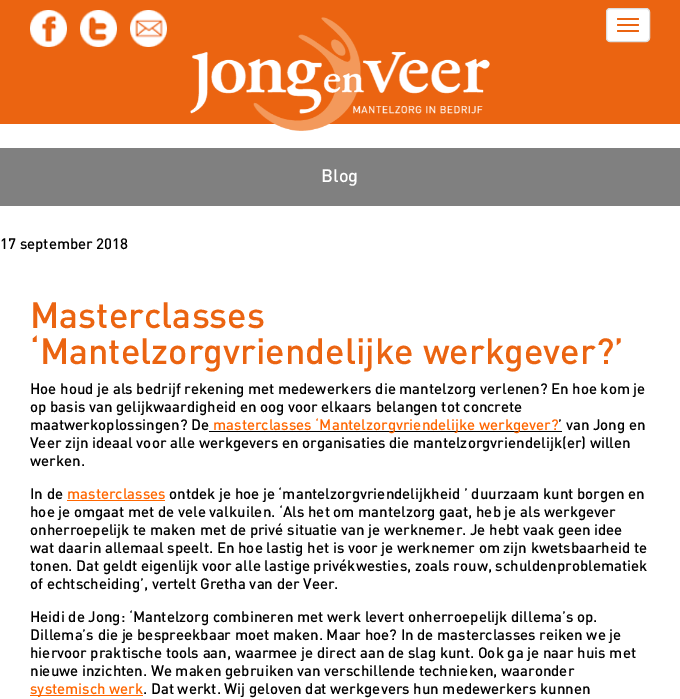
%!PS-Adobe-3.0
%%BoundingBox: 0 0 680 699
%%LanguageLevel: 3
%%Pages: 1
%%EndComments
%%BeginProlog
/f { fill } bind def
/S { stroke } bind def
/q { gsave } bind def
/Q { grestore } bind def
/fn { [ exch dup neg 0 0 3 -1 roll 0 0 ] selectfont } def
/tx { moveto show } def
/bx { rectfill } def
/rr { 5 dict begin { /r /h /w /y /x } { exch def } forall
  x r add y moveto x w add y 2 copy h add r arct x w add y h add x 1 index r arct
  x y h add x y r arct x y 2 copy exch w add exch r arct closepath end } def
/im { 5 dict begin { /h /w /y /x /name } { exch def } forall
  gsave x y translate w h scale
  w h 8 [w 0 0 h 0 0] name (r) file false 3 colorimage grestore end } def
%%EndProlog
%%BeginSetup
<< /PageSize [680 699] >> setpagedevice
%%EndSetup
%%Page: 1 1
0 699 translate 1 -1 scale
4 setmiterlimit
1 setgray
0 0 680 699 bx
0.922 0.392 0.067 setrgbcolor
0 0 680 124 bx
(image0.raw) 30 10 37 37 im
(image1.raw) 80 10 37 37 im
(image2.raw) 130 10 37 37 im
(image3.raw) 190 17 300 114 im
1 setgray
606.5 8.5 43 33 3.5 rr q f Q
0.867 setgray
S
0.922 0.392 0.067 setrgbcolor
617 18 22 2 1 rr f
617 24 22 2 1 rr f
617 30 22 2 1 rr f
0.502 setgray
0 148 680 58 bx
/DIN-Medium 18 fn
1 setgray
(Blog) 321 182 tx
/DIN-Medium 15 fn
0 setgray
(17 september 2018) 0 249 tx
/DIN-Medium 36 fn
0.922 0.392 0.067 setrgbcolor
(Masterclasses) 30 328 tx
(‘Mantelzorgvriendelijke werkgever?’) 30 364 tx
/DIN-Medium 15 fn
0 setgray
(Hoe houd je als bedrijf rekening met medewerkers die mantelzorg verlenen? En hoe kom je) 30 394 tx
(op basis van gelijkwaardigheid en oog voor elkaars belangen tot concrete) 30 412 tx
(maatwerkoplossingen? De) 30 430 tx
209 431 353 1 bx
1 0.4 0 setrgbcolor
(masterclasses ‘Mantelzorgvriendelijke werkgever?) 213 430 tx
0 setgray
(’ van Jong en) 558 430 tx
(Veer zijn ideaal voor alle werkgevers en organisaties die mantelzorgvriendelijk\(er\) willen) 30 448 tx
(werken.) 30 466 tx
(In de) 30 499 tx
1 0.4 0 setrgbcolor
(masterclasses) 67 499 tx
67 500 98 1 bx
0 setgray
(ontdek je hoe je ‘mantelzorgvriendelijkheid ’ duurzaam kunt borgen en) 169 499 tx
(hoe je omgaat met de vele valkuilen. ‘Als het om mantelzorg gaat, heb je als werkgever) 30 517 tx
(onherroepelijk te maken met de privé situatie van je werknemer. Je hebt vaak geen idee) 30 535 tx
(wat daarin allemaal speelt. En hoe lastig het is voor je werknemer om zijn kwetsbaarheid te) 30 553 tx
(tonen. Dat geldt eigenlijk voor alle lastige privékwesties, zoals rouw, schuldenproblematiek) 30 571 tx
(of echtscheiding’, vertelt Gretha van der Veer.) 30 589 tx
(Heidi de Jong: ‘Mantelzorg combineren met werk levert onherroepelijk dillema’s op.) 30 622 tx
(Dillema’s die je bespreekbaar moet maken. Maar hoe? In de masterclasses reiken we je) 30 640 tx
(hiervoor praktische tools aan, waarmee je direct aan de slag kunt. Ook ga je naar huis met) 30 658 tx
(nieuwe inzichten. We maken gebruiken van verschillende technieken, waaronder) 30 676 tx
1 0.4 0 setrgbcolor
30 695 113 1 bx
(systemisch werk) 30 694 tx
0 setgray
(. Dat werkt. Wij geloven dat werkgevers hun medewerkers kunnen) 143 694 tx
showpage
%%EOF
